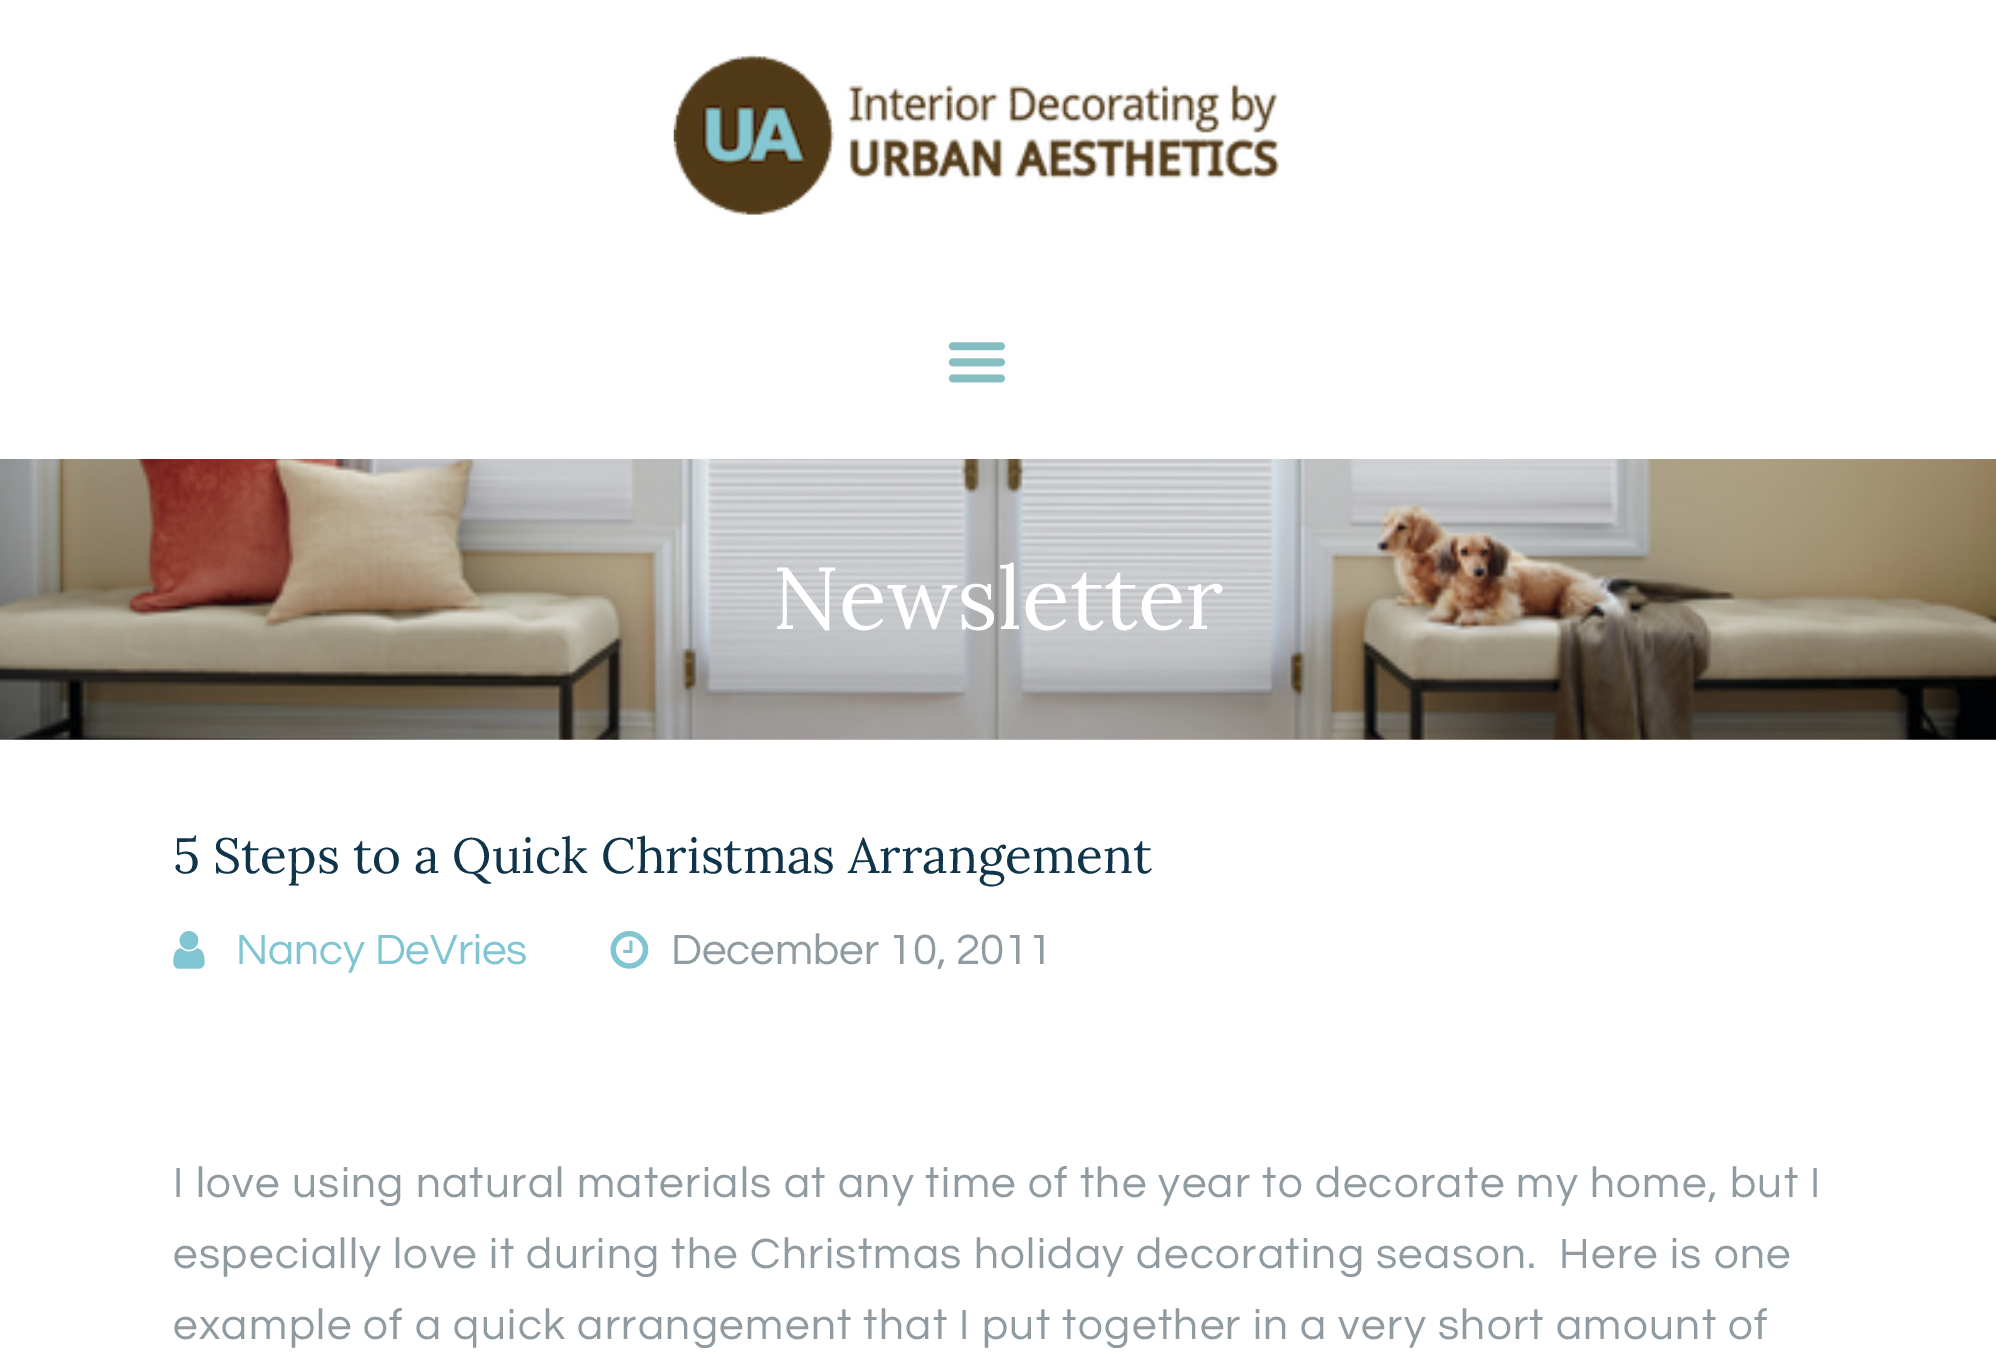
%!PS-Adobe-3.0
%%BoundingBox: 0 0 1996 1361
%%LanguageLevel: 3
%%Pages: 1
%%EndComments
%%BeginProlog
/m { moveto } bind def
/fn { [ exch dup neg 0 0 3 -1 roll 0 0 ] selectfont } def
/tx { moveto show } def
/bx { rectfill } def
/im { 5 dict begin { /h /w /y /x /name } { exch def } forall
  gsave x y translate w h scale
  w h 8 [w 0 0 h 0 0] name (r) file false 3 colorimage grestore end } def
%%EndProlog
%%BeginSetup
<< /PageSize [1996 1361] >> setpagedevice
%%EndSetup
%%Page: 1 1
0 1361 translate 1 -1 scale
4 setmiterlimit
1 setgray
0 0 1996 1361 bx
(image0.raw) 0 459 1996 281 im
(image1.raw) 673 54 606 161 im
(image2.raw) 948 342 57 41 im
/Lora-Regular 88 fn
(Newsletter) 772 629 tx
/Lora-Regular 49.5 fn
0.063 0.204 0.286 setrgbcolor
(5 Steps to a Quick Christmas Arrangement) 173 873 tx
(image3.raw) 173 931 32 38 im
/Questrial-Regular 44 fn
0.506 0.773 0.827 setrgbcolor
(Nancy DeVries) 236 964 tx
(image4.raw) 610 931 39 38 im
0.565 0.604 0.631 setrgbcolor
(December 10, 2011) 671 964 tx
173 1197 m 1.38 0 (I love using natural materials at any time of the year to decorate my home, but I) ashow
173 1268 m 1.38 0 (especially love it during the Christmas holiday decorating season.  Here is one) ashow
173 1339 m 1.38 0 (example of a quick arrangement that I put together in a very short amount of) ashow
showpage
%%EOF
